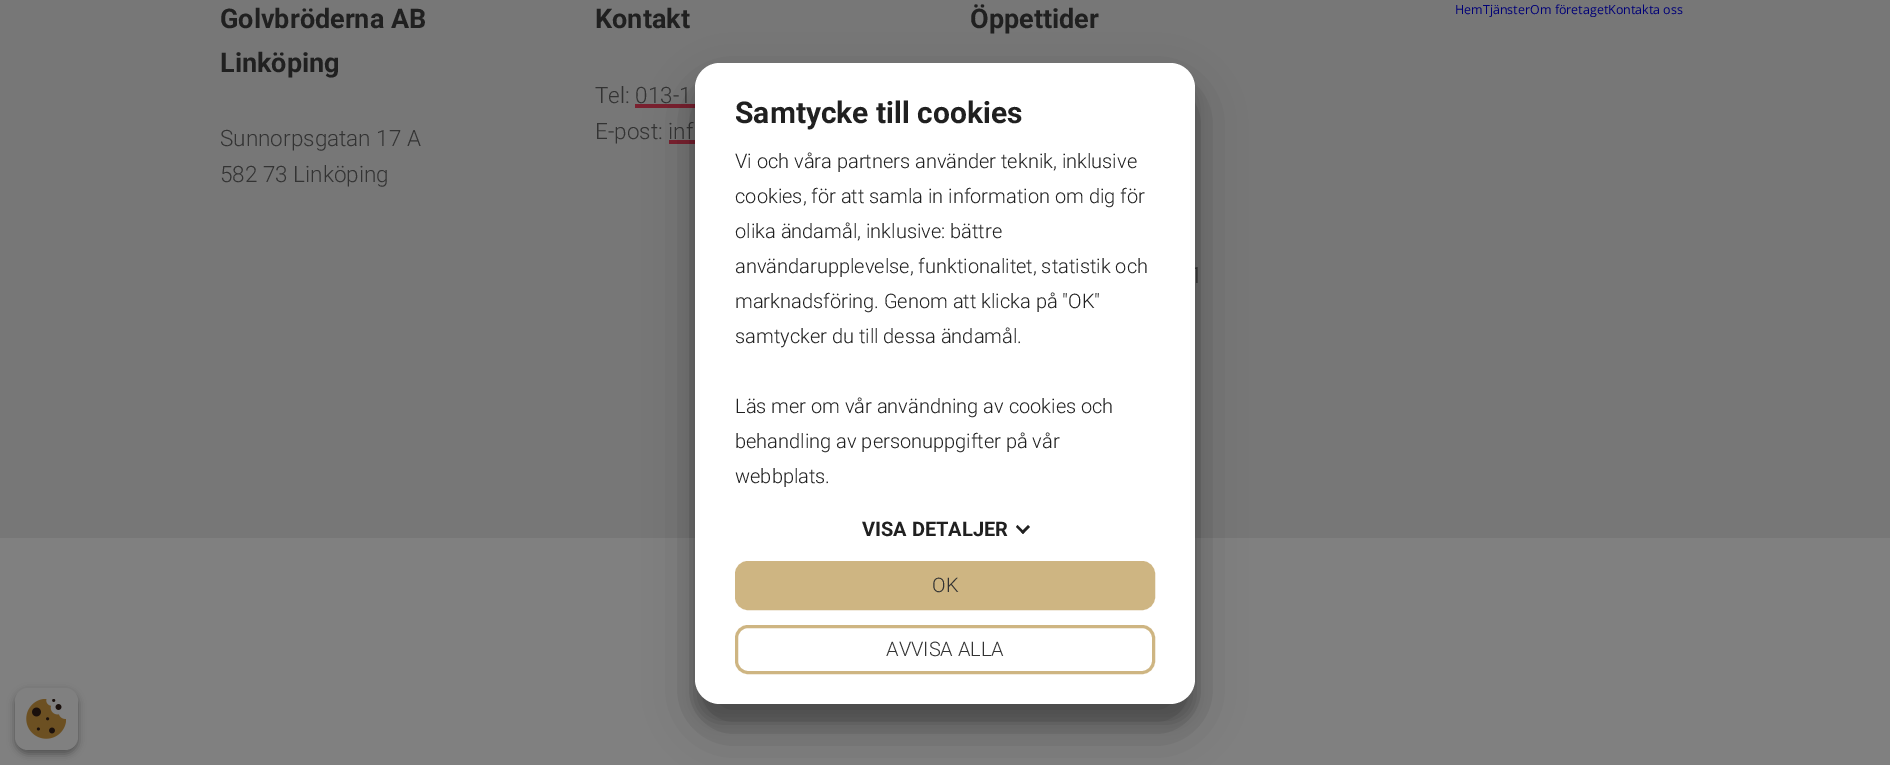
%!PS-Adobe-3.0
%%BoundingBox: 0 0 1890 765
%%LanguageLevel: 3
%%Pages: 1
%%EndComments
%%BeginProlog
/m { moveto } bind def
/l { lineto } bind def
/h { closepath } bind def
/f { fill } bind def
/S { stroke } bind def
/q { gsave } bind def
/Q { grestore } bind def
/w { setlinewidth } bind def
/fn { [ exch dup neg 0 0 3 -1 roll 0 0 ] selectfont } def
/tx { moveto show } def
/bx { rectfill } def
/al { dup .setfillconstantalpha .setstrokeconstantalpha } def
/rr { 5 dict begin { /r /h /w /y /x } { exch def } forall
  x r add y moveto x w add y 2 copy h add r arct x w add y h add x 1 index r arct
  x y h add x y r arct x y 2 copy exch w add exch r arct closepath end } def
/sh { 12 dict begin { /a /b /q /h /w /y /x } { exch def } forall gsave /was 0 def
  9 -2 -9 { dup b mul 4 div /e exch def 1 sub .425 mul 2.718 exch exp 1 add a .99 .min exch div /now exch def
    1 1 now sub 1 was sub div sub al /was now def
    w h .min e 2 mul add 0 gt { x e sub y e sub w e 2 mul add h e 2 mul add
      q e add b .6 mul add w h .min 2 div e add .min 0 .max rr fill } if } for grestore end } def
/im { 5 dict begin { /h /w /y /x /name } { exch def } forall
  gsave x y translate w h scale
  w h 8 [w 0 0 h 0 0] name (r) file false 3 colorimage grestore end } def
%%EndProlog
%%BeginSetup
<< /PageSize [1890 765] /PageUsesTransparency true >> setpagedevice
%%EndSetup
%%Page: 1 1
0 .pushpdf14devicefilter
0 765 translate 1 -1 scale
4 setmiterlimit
0.467 setgray
0 0 1890 765 bx
/Roboto-Bold 27 fn
0.125 setgray
(Golvbröderna AB) 220 28 tx
(Linköping) 220 72 tx
/Roboto-Light 22.5 fn
0.2 setgray
(Sunnorpsgatan 17 A) 220 146 tx
(582 73 Linköping) 220 182 tx
/Roboto-Bold 27 fn
0.125 setgray
(Kontakt) 595 28 tx
/Roboto-Light 22.5 fn
0.2 setgray
(Tel: 013-1) 595 103 tx
0.478 0.125 0.184 setrgbcolor
635 104 60 4 bx
0.2 setgray
(E-post: inf) 595 139 tx
0.478 0.125 0.184 setrgbcolor
669 140 26 4 bx
/Roboto-Bold 27 fn
0.125 setgray
(Öppettider) 970 28 tx
/Roboto-Light 22.5 fn
0.2 setgray
(1) 1190 283 tx
0.502 setgray
0 538 1890 227 bx
/OpenSans-Regular 12.5 fn
0 0 0.467 setrgbcolor
(HemTjänsterOm företagetKontakta oss) 1455 14 tx
0 setgray
695 81 500 642 25 7.5 0.22 sh
695 86 500 642 25 24 0.3 sh
1 setgray
695 63 500 641 25 rr f
/Roboto-Bold 30 fn
0.125 setgray
(Samtycke till cookies) 735 123 tx
/Roboto-Light 20 fn
(Vi och våra partners använder teknik, inklusive) 735 168 tx
(cookies, för att samla in information om dig för) 735 203 tx
(olika ändamål, inklusive: bättre) 735 238 tx
(användarupplevelse, funktionalitet, statistik och) 735 273 tx
(marknadsföring. Genom att klicka på "OK") 735 308 tx
(samtycker du till dessa ändamål.) 735 343 tx
(Läs mer om vår användning av cookies och) 735 413 tx
(behandling av personuppgifter på vår) 735 448 tx
(webbplats.) 735 483 tx
/Roboto-Bold 20 fn
(VISA DETALJER) 862 536 tx
0.129 setgray
1028 525 m 1030 527 l 1023 534 l 1021 532 l h f
1017.5 525 m 1024.5 532 l 1023 534 l 1016 527 l h f
0.808 0.71 0.51 setrgbcolor
736.5 562.5 417 46 11.5 rr q f Q
3 w
S
/Roboto-Light 20 fn
0.2 setgray
(OK) 932 592 tx
0.808 0.71 0.51 setrgbcolor
736.5 626.5 417 46 11.5 rr S
0.2 setgray
(AVVISA ALLA) 886 656 tx
0 setgray
15 691 63 63 13 4 0.23 sh
15 691 63 63 13 4 0.16 sh
0.502 setgray
15 688 63 62 13 rr f
(image0.raw) 26 699 40 40 im
.poppdf14devicefilter showpage
%%EOF
